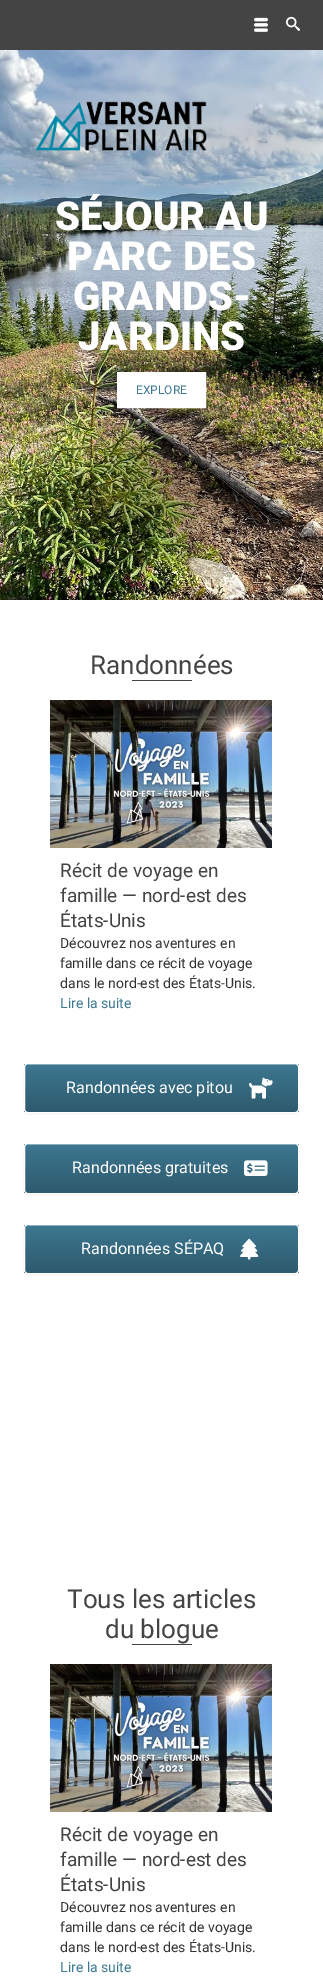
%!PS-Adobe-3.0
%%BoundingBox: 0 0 323 1983
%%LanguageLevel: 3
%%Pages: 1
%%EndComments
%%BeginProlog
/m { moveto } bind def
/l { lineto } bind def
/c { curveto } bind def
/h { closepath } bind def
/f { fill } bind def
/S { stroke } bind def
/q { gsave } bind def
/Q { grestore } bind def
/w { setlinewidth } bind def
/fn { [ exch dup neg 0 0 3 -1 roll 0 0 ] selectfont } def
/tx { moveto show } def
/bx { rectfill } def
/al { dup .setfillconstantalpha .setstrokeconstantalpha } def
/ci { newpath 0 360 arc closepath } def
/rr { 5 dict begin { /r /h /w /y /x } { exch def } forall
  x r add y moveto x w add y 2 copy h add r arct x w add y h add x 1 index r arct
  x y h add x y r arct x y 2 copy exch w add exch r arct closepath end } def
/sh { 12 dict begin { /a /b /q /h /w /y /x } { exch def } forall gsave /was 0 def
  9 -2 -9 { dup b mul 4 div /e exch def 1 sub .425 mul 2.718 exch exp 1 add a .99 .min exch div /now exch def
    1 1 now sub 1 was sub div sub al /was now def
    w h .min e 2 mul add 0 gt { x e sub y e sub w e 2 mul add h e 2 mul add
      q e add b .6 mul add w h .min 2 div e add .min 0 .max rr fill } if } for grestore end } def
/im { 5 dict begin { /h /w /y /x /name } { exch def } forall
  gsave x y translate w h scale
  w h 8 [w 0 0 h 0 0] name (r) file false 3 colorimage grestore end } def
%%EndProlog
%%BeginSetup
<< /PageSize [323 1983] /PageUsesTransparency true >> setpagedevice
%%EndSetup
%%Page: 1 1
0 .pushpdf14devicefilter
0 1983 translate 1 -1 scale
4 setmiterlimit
1 setgray
0 0 323 1983 bx
0.267 setgray
0 0 323 50 bx
(image0.raw) 254 17 14 15 im
(image1.raw) 286 16 14 15 im
(image3.raw) 0 50 323 550 im
(image2.raw) 35 101 172 50 im
/Roboto-Black 40 fn
1 setgray
(SÉJOUR AU) 55 230 tx
(PARC DES) 67 270 tx
(GRANDS-) 73 310 tx
(JARDINS) 78 350 tx
119 374 m 204 374 l 204 406 l 119 406 l h q f Q
4 w
S
/Roboto-Regular 12 fn
0.239 0.471 0.569 setrgbcolor
(EXPLORE) 136 394 tx
0.8 al
0 setgray
154 587 5 ci f
0.3 al
169 587 5 ci f
/Roboto-Regular 26 fn
1 al
0.267 setgray
(Randonnées) 90 674 tx
132 680 60 1 bx
(image4.raw) 50 700 222 148 im
/Roboto-Regular 19 fn
(Récit de voyage en) 60 877 tx
(famille — nord-est des) 60 902 tx
(États-Unis) 60 927 tx
/Roboto-Regular 14 fn
0.2 setgray
(Découvrez nos aventures en) 60 948 tx
(famille dans ce récit de voyage) 60 968 tx
(dans le nord-est des États-Unis.) 60 988 tx
0.239 0.471 0.569 setrgbcolor
(Lire la suite) 60 1008 tx
0 setgray
24 1064 275 50 4 1 0.07 sh
q
24 1063 275 50 4 rr clip newpath
q 24 1064 m 299 1064 l 299 1112 l 24 1112 l h clip newpath
<< /ShadingType 2 /ColorSpace /DeviceRGB /Coords [25 1112 25 1064] /Extend [true true] /Function << /FunctionType 2 /Domain [0 1] /C0 [0.18 0.353 0.427] /C1 [0.239 0.471 0.569] /N 1 >> >> shfill Q
Q
0.392 0.576 0.655 setrgbcolor
28 1065 m 295 1065 l 297 1065 298 1066 298 1068 c 298 1067 l 298 1065 297 1064 295 1064 c 28 1064 l 26 1064 25 1065 25 1067 c 25 1068 l 25 1066 26 1065 28 1065 c h f
1 setgray
1 w
24.5 1063.5 274 49 3.5 rr S
/Roboto-Regular 16.1 fn
(Randonnées avec pitou) 66 1093 tx
(image5.raw) 249 1077 24 22 im
0 setgray
24 1144 275 51 4 1 0.07 sh
q
24 1143 275 51 4 rr clip newpath
q 24 1144 m 299 1144 l 299 1193 l 24 1193 l h clip newpath
<< /ShadingType 2 /ColorSpace /DeviceRGB /Coords [25 1193 25 1144] /Extend [true true] /Function << /FunctionType 2 /Domain [0 1] /C0 [0.18 0.353 0.427] /C1 [0.239 0.471 0.569] /N 1 >> >> shfill Q
Q
0.392 0.576 0.655 setrgbcolor
28 1145 m 295 1145 l 297 1145 298 1146 298 1148 c 298 1147 l 298 1145 297 1144 295 1144 c 28 1144 l 26 1144 25 1145 25 1147 c 25 1148 l 25 1146 26 1145 28 1145 c h f
1 setgray
24.5 1143.5 274 50 3.5 rr S
(Randonnées gratuites) 72 1173 tx
(image6.raw) 244 1160 24 16 im
0 setgray
24 1225 275 50 4 1 0.07 sh
q
24 1224 275 50 4 rr clip newpath
q 24 1225 m 299 1225 l 299 1273 l 24 1273 l h clip newpath
<< /ShadingType 2 /ColorSpace /DeviceRGB /Coords [25 1273 25 1225] /Extend [true true] /Function << /FunctionType 2 /Domain [0 1] /C0 [0.18 0.353 0.427] /C1 [0.239 0.471 0.569] /N 1 >> >> shfill Q
Q
0.392 0.576 0.655 setrgbcolor
28 1226 m 295 1226 l 297 1226 298 1227 298 1229 c 298 1228 l 298 1226 297 1225 295 1225 c 28 1225 l 26 1225 25 1226 25 1228 c 25 1229 l 25 1227 26 1226 28 1226 c h f
1 setgray
24.5 1224.5 274 49 3.5 rr S
(Randonnées SÉPAQ) 81 1254 tx
(image7.raw) 240 1238 19 22 im
/Roboto-Regular 26 fn
0.267 setgray
(Tous les articles) 67 1608 tx
(du blogue) 105 1638 tx
132 1644 60 1 bx
(image4.raw) 50 1664 222 148 im
/Roboto-Regular 19 fn
(Récit de voyage en) 60 1841 tx
(famille — nord-est des) 60 1866 tx
(États-Unis) 60 1891 tx
/Roboto-Regular 14 fn
0.2 setgray
(Découvrez nos aventures en) 60 1912 tx
(famille dans ce récit de voyage) 60 1932 tx
(dans le nord-est des États-Unis.) 60 1952 tx
0.239 0.471 0.569 setrgbcolor
(Lire la suite) 60 1972 tx
.poppdf14devicefilter showpage
%%EOF
